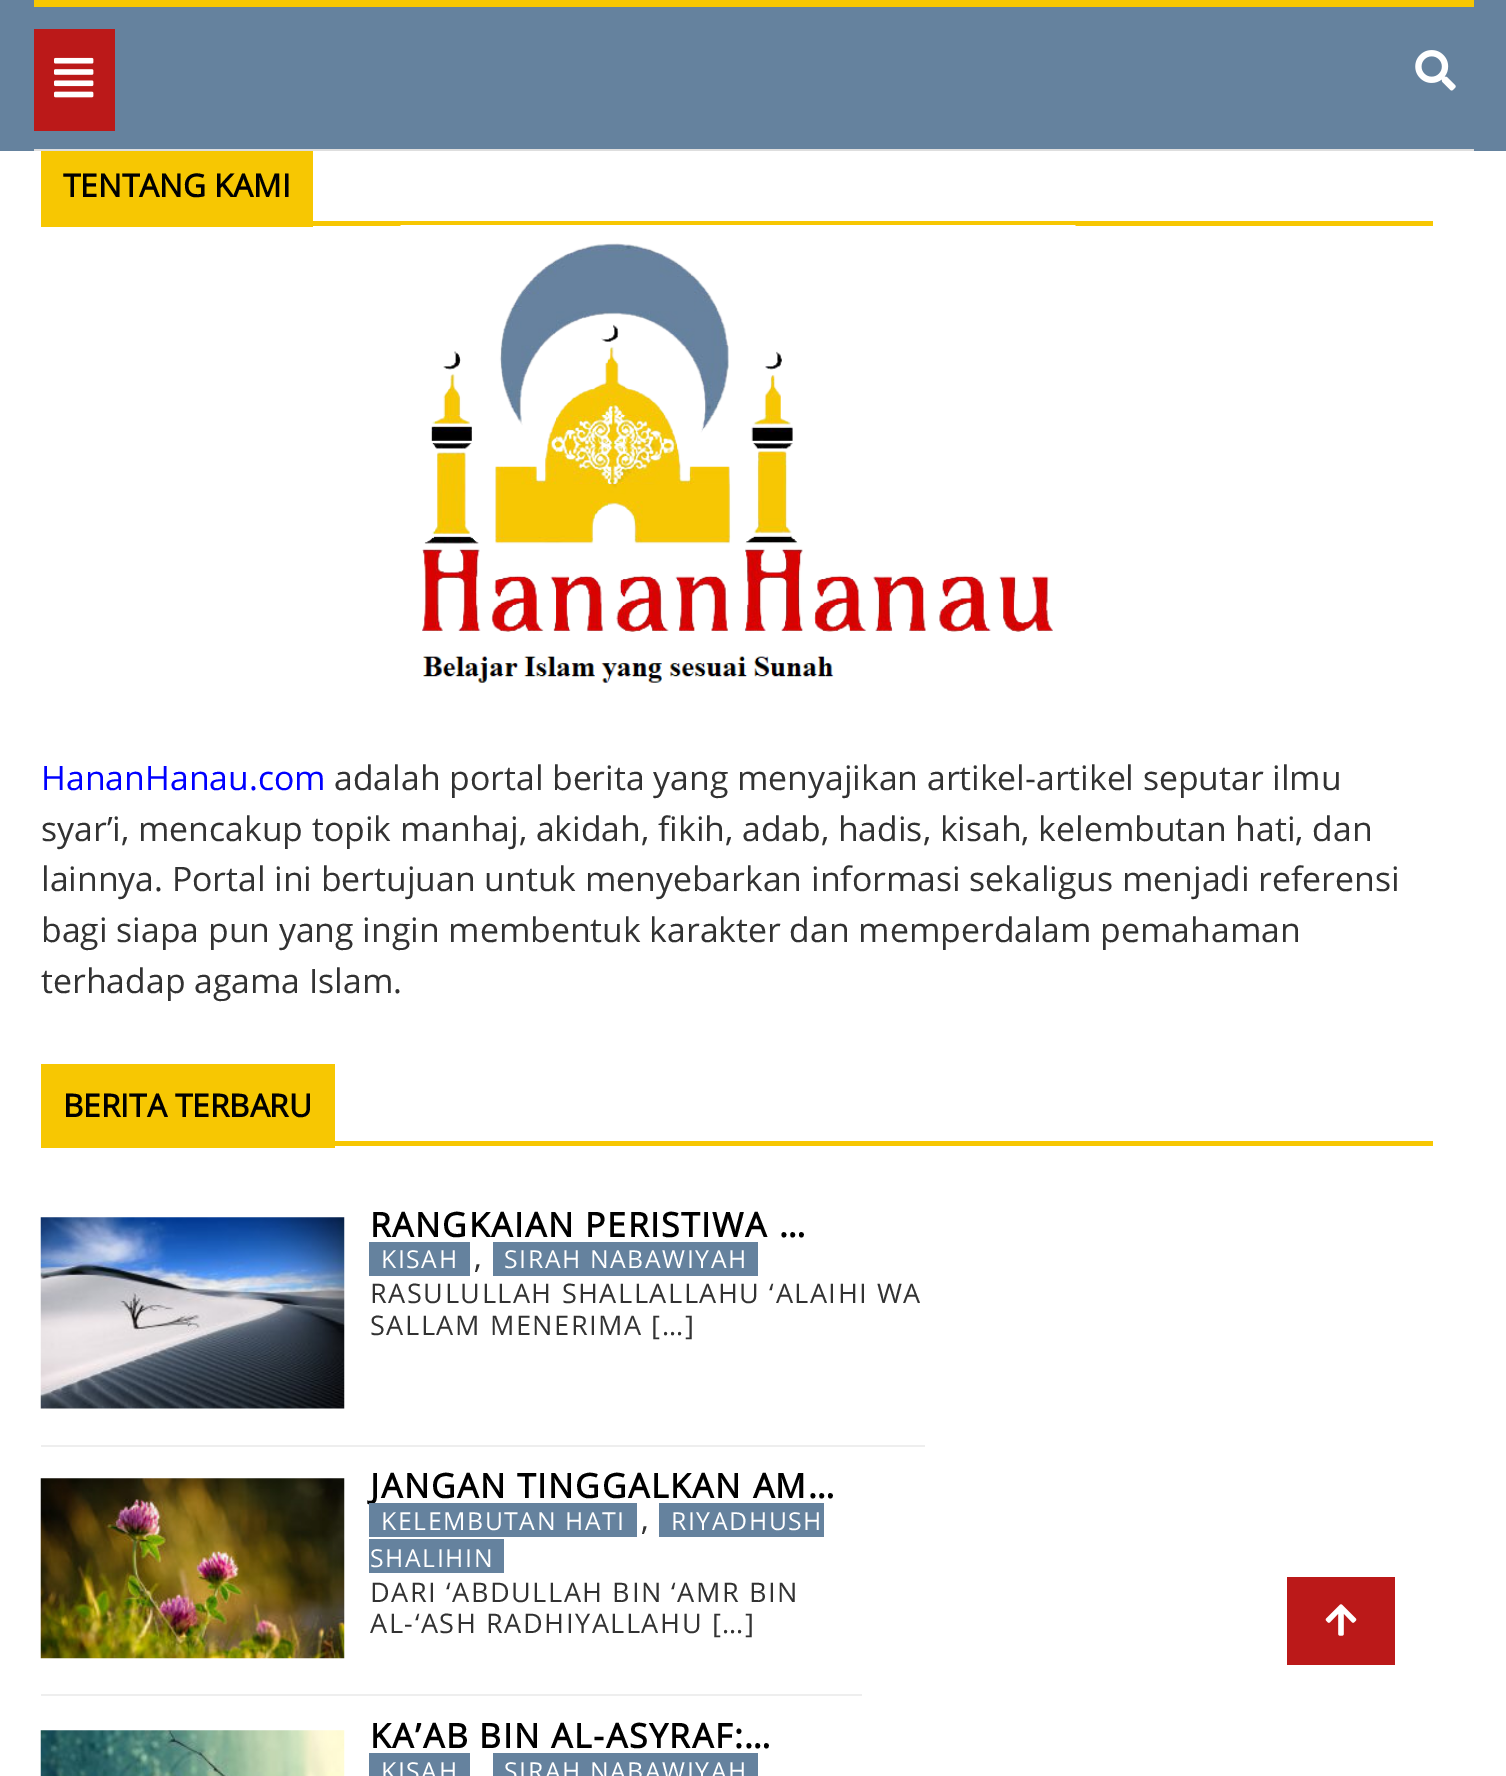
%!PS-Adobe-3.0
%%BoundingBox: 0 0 1506 1776
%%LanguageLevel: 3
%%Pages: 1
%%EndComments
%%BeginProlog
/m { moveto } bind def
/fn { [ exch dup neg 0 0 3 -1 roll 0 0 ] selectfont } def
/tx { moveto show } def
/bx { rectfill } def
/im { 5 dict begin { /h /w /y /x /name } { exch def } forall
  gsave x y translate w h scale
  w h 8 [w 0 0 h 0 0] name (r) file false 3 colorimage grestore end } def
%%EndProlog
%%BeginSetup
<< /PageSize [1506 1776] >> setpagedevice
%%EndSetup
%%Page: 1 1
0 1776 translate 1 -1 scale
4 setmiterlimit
1 setgray
0 0 1506 1776 bx
0.396 0.51 0.62 setrgbcolor
0 0 1506 151 bx
0.969 0.78 0.008 setrgbcolor
34 0 1440 7 bx
0.871 setgray
34 149 1440 2 bx
0.733 0.098 0.098 setrgbcolor
34 29 81 102 bx
(image0.raw) 54 57 40 41 im
(image1.raw) 1415 50 41 41 im
0.969 0.78 0.008 setrgbcolor
313 221 1120 5 bx
41 151 272 76 bx
/OpenSans-Bold 31.5 fn
0 setgray
(TENTANG KAMI) 63 197 tx
(image2.raw) 400 225 676 458 im
/OpenSans-Regular 33.75 fn
0 0 1 setrgbcolor
(HananHanau.com) 41 790 tx
0.196 setgray
(adalah portal berita yang menyajikan artikel-artikel seputar ilmu) 334 790 tx
(syar’i, mencakup topik manhaj, akidah, fikih, adab, hadis, kisah, kelembutan hati, dan) 41 841 tx
(lainnya. Portal ini bertujuan untuk menyebarkan informasi sekaligus menjadi referensi) 41 891 tx
(bagi siapa pun yang ingin membentuk karakter dan memperdalam pemahaman) 41 942 tx
(terhadap agama Islam.) 41 993 tx
0.969 0.78 0.008 setrgbcolor
335 1141 1098 5 bx
41 1064 294 84 bx
/OpenSans-Bold 31.5 fn
0 setgray
(BERITA TERBARU) 63 1117 tx
0.933 setgray
41 1445 884 2 bx
(image3.raw) 40 1217 305 192 im
/OpenSans-Bold 33.75 fn
0 setgray
370 1237 m 1.6 0 (RANGKAIAN PERISTIWA …) ashow
0.396 0.51 0.62 setrgbcolor
369 1242 101 34 bx
/OpenSans-Regular 24.75 fn
1 setgray
381 1268 m 1.6 0 (KISAH) ashow
/OpenSans-Regular 31.5 fn
0.196 setgray
474 1268 m 1.6 0 (,) ashow
0.396 0.51 0.62 setrgbcolor
493 1242 265 34 bx
/OpenSans-Regular 24.75 fn
1 setgray
504 1268 m 1.6 0 (SIRAH NABAWIYAH) ashow
/OpenSans-Regular 27 fn
0.196 setgray
370 1303 m 1.6 0 (RASULULLAH SHALLALLAHU ‘ALAIHI WA) ashow
370 1335 m 1.6 0 (SALLAM MENERIMA […]) ashow
0.933 setgray
41 1694 821 2 bx
(image4.raw) 40 1478 305 181 im
/OpenSans-Bold 33.75 fn
0 setgray
370 1498 m 1.6 0 (JANGAN TINGGALKAN AM…) ashow
0.396 0.51 0.62 setrgbcolor
369 1503 268 34 bx
/OpenSans-Regular 24.75 fn
1 setgray
381 1530 m 1.6 0 (KELEMBUTAN HATI) ashow
/OpenSans-Regular 31.5 fn
0.196 setgray
641 1530 m 1.6 0 (,) ashow
0.396 0.51 0.62 setrgbcolor
659 1503 165 34 bx
/OpenSans-Regular 24.75 fn
1 setgray
671 1530 m 1.6 0 (RIYADHUSH) ashow
0.396 0.51 0.62 setrgbcolor
369 1539 135 34 bx
1 setgray
370 1567 m 1.6 0 (SHALIHIN) ashow
/OpenSans-Regular 27 fn
0.196 setgray
370 1602 m 1.6 0 (DARI ‘ABDULLAH BIN ‘AMR BIN) ashow
370 1633 m 1.6 0 (AL-‘ASH RADHIYALLAHU […]) ashow
(image5.raw) 40 1730 305 46 im
/OpenSans-Bold 33.75 fn
0 setgray
370 1748 m 1.6 0 (KA’AB BIN AL-ASYRAF:…) ashow
0.396 0.51 0.62 setrgbcolor
369 1753 101 23 bx
/OpenSans-Regular 24.75 fn
1 setgray
381 1780 m 1.6 0 (KISAH) ashow
0.396 0.51 0.62 setrgbcolor
493 1753 265 23 bx
1 setgray
504 1780 m 1.6 0 (SIRAH NABAWIYAH) ashow
0.733 0.098 0.098 setrgbcolor
1287 1577 108 88 bx
(image6.raw) 1325 1604 32 32 im
showpage
%%EOF
